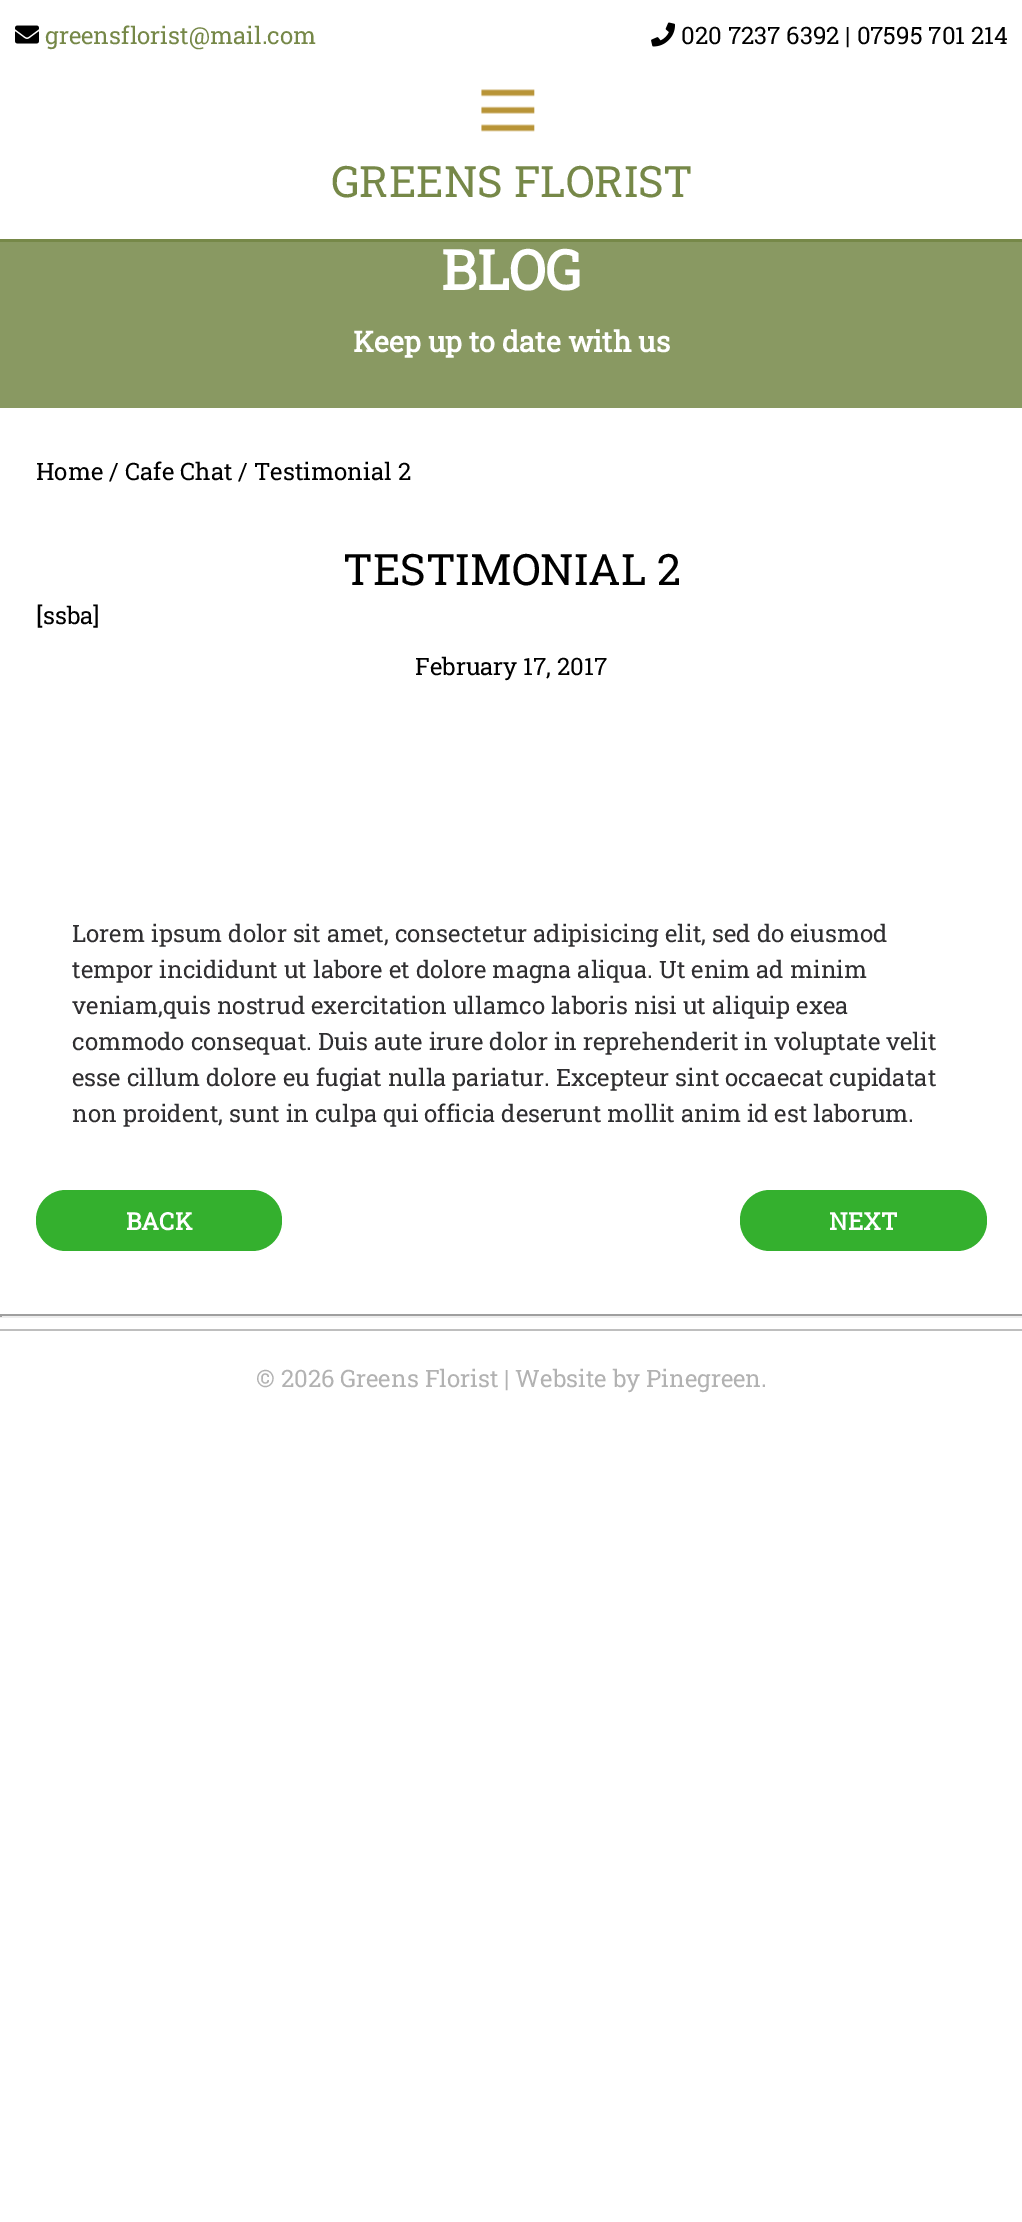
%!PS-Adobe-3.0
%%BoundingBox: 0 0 1022 2222
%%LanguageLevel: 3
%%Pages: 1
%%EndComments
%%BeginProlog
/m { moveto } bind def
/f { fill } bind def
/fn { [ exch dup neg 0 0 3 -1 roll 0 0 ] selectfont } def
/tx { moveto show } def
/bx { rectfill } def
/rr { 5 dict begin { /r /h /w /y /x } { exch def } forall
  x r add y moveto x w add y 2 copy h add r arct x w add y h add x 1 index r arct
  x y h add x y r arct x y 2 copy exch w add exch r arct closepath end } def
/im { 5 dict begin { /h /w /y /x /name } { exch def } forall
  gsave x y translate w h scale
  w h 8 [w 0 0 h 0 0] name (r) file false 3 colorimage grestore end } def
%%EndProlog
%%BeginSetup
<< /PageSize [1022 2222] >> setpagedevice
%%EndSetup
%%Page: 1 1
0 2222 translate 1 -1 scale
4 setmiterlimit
1 setgray
0 0 1022 2222 bx
0.463 0.533 0.282 setrgbcolor
0 239 1022 3 bx
(image0.raw) 15 25 24 19 im
/RobotoSlab-Regular 24 fn
(greensflorist@mail.com) 45 44 tx
(image1.raw) 651 22 24 25 im
0 setgray
(020 7237 6392 | 07595 701 214) 681 44 tx
(image2.raw) 481 89 54 43 im
/RobotoSlab-Regular 43.25 fn
0.463 0.533 0.282 setrgbcolor
(GREENS FLORIST) 331 197 tx
0.537 0.6 0.384 setrgbcolor
0 242 1022 166 bx
/RobotoSlab-Bold 55 fn
1 setgray
(BLOG) 441 290 tx
/RobotoSlab-Bold 28.75 fn
(Keep up to date with us) 353 352 tx
/RobotoSlab-Regular 24 fn
0 setgray
(Home / Cafe Chat / Testimonial 2) 36 480 tx
/RobotoSlab-Regular 43.25 fn
(TESTIMONIAL 2) 343 585 tx
/RobotoSlab-Regular 24 fn
([ssba]) 36 624 tx
(February 17, 2017) 415 675 tx
0.188 0.184 0.192 setrgbcolor
(Lorem ipsum dolor sit amet, consectetur adipisicing elit, sed do eiusmod) 72 942 tx
(tempor incididunt ut labore et dolore magna aliqua. Ut enim ad minim) 72 978 tx
(veniam,quis nostrud exercitation ullamco laboris nisi ut aliquip exea) 72 1014 tx
(commodo consequat. Duis aute irure dolor in reprehenderit in voluptate velit) 72 1050 tx
(esse cillum dolore eu fugiat nulla pariatur. Excepteur sint occaecat cupidatat) 72 1086 tx
72 1122 m -0.1 0 32 (non proident, sunt in culpa qui officia deserunt mollit anim id est laborum.) widthshow
0.204 0.69 0.18 setrgbcolor
36 1190 246 61 30 rr f
/RobotoSlab-Bold 24 fn
1 setgray
(BACK) 126 1230 tx
0.204 0.69 0.18 setrgbcolor
740 1190 247 61 30 rr f
1 setgray
(NEXT) 829 1230 tx
0.624 setgray
0 1314 1022 2 bx
0.933 setgray
0 1316 1022 2 bx
0.624 setgray
0 1314 2 3 bx
0.745 setgray
0 1329 1022 2 bx
/RobotoSlab-Regular 24 fn
0.698 setgray
(© 2026 Greens Florist | Website by Pinegreen.) 256 1387 tx
showpage
%%EOF
